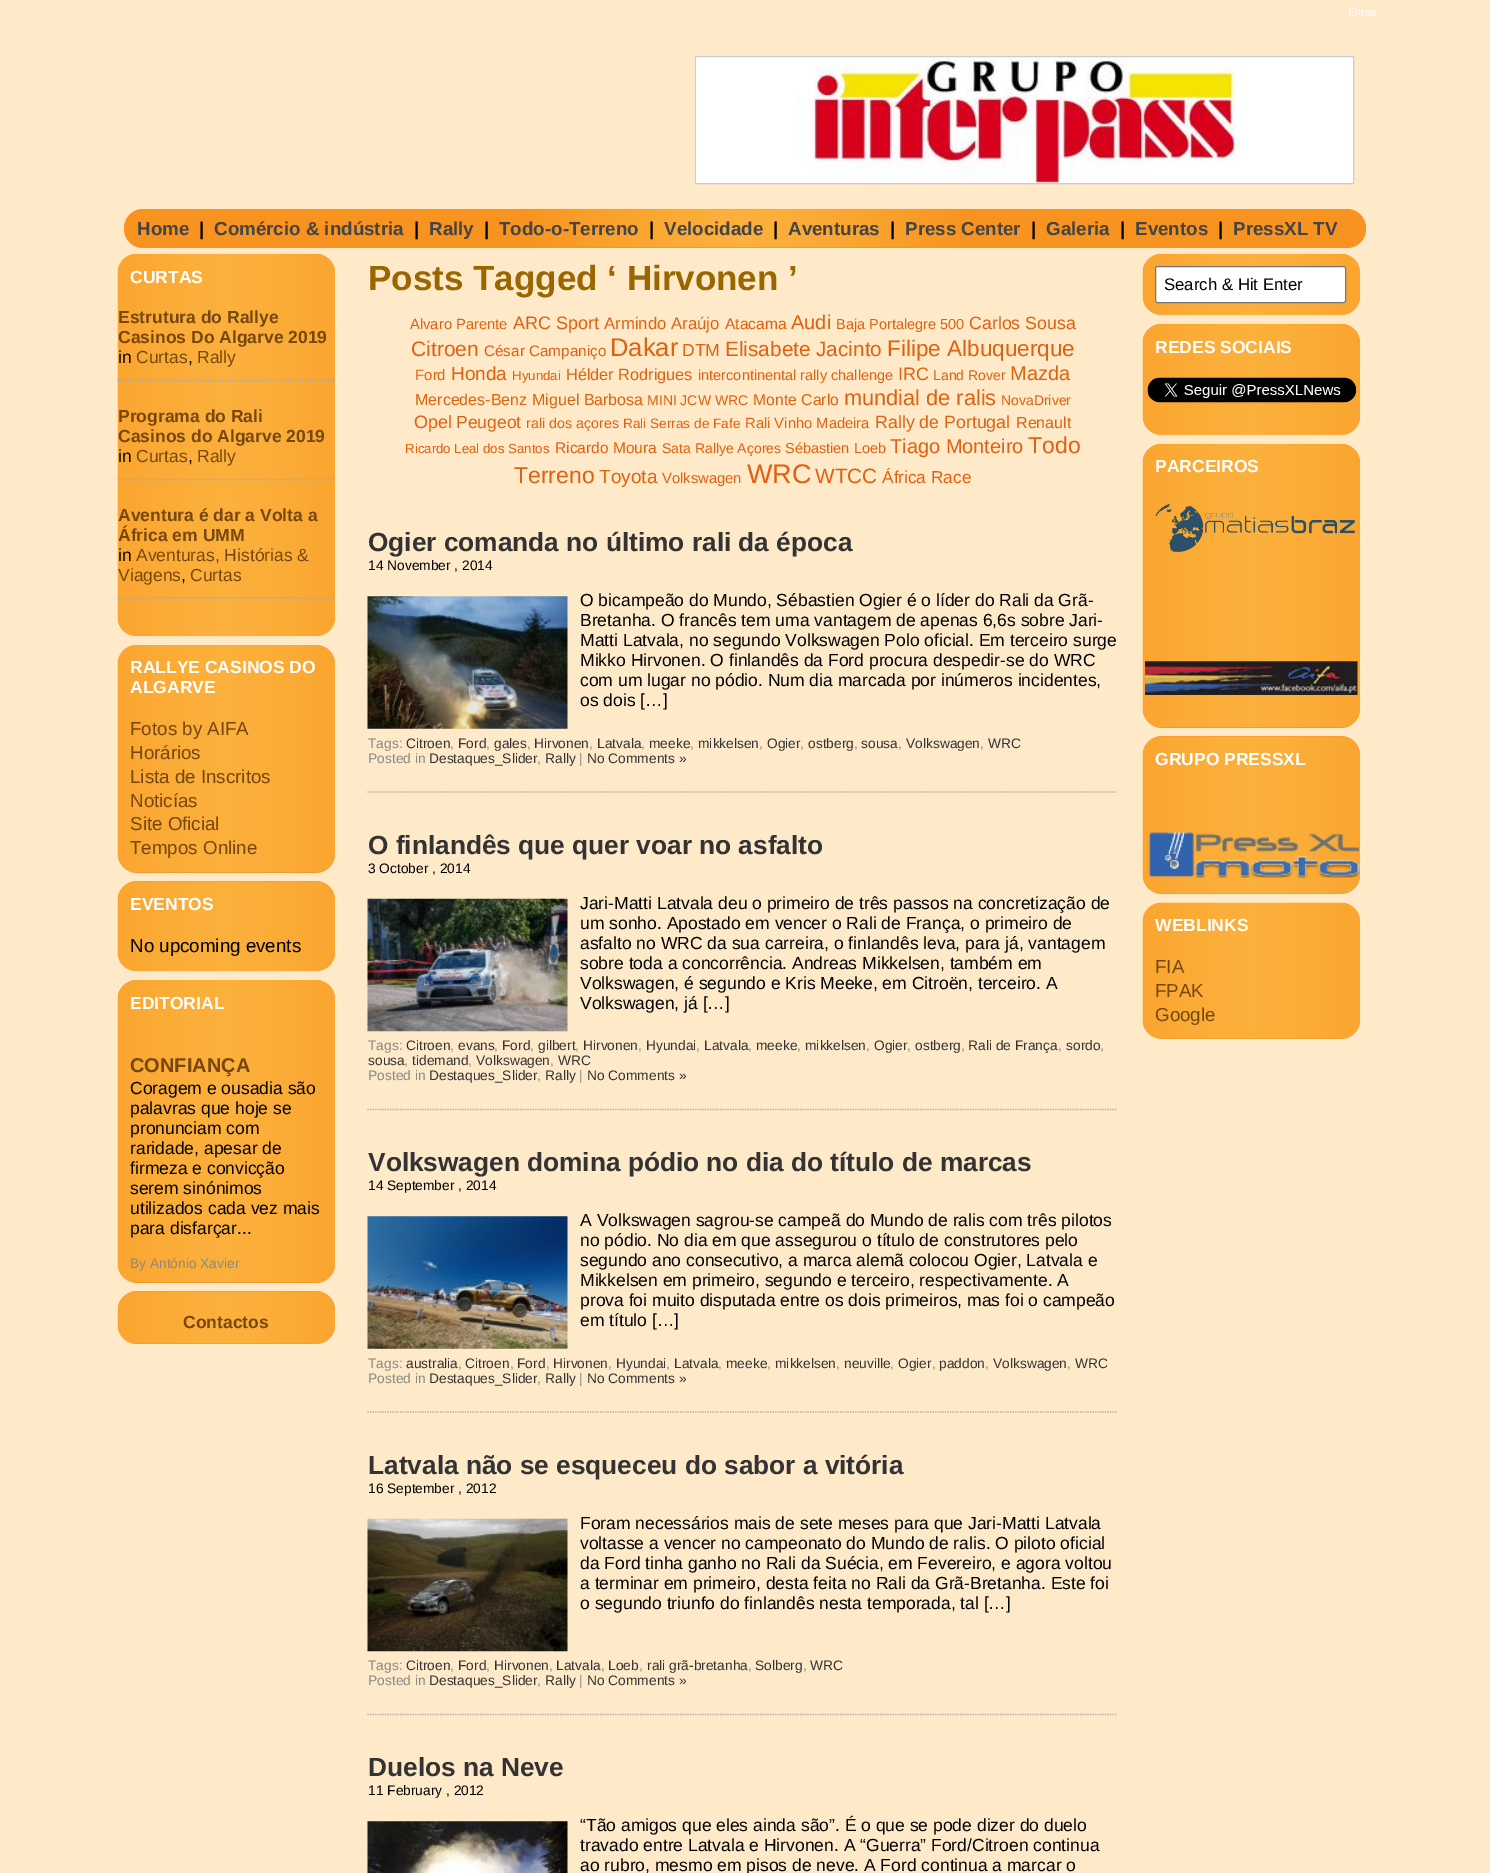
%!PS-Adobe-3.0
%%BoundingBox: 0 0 1490 1873
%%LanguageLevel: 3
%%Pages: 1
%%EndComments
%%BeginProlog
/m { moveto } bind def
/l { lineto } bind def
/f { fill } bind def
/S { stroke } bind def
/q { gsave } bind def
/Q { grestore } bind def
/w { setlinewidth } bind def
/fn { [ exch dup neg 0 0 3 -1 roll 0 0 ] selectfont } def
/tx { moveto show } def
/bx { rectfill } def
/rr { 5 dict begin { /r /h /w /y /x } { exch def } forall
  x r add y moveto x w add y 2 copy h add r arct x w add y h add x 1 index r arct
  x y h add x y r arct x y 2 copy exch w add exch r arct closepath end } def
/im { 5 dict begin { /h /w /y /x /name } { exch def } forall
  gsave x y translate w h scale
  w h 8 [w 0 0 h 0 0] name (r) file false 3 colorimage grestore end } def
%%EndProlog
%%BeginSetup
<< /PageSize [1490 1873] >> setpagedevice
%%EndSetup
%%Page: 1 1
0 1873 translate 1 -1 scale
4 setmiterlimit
0.996 0.914 0.788 setrgbcolor
0 0 1490 1873 bx
/LiberationSans-Regular 11 fn
1 setgray
(Entrar) 1348 16 tx
0.8 setgray
695.5 56.5 658 127 rectstroke
1 setgray
696 58 657 125 bx
(image0.raw) 696 57 656 126 im
0.969 0.576 0.118 setrgbcolor
124 209 1242 39 19 rr f
(image1.raw) 520 208 450 40 im
/LiberationSans-Bold 18.75 fn
0.267 setgray
(Home) 137 235 tx
0 setgray
(|) 199 235 tx
0.267 setgray
(Comércio & indústria) 214 235 tx
0 setgray
(|) 414 235 tx
0.267 setgray
(Rally) 429 235 tx
0 setgray
(|) 484 235 tx
0.267 setgray
(Todo-o-Terreno) 499 235 tx
0 setgray
(|) 649 235 tx
0.267 setgray
(Velocidade) 664 235 tx
0 setgray
(|) 773 235 tx
0.267 setgray
(Aventuras) 788 235 tx
0 setgray
(|) 890 235 tx
0.267 setgray
(Press Center) 905 235 tx
0 setgray
(|) 1031 235 tx
0.267 setgray
(Galeria) 1046 235 tx
0 setgray
(|) 1120 235 tx
0.267 setgray
(Eventos) 1135 235 tx
0 setgray
(|) 1218 235 tx
0.267 setgray
(PressXL TV) 1233 235 tx
(image2.raw) 117 253 218 384 im
/LiberationSans-Bold 17.5 fn
1 setgray
(CURTAS) 130 283 tx
0.667 setgray
1.2 w
[1.25 1.25] 0 setdash
117.5 380.5 m 335 380.5 l S
0.467 0.278 0.059 setrgbcolor
(Estrutura do Rallye) 118 323 tx
(Casinos Do Algarve 2019) 118 343 tx
/LiberationSans-Regular 17.5 fn
0 setgray
(in) 118 363 tx
0.467 0.278 0.059 setrgbcolor
(Curtas) 136 363 tx
0 setgray
(,) 188 363 tx
0.467 0.278 0.059 setrgbcolor
(Rally) 197 363 tx
0.667 setgray
117.5 479.5 m 335 479.5 l S
/LiberationSans-Bold 17.5 fn
0.467 0.278 0.059 setrgbcolor
(Programa do Rali) 118 422 tx
(Casinos do Algarve 2019) 118 442 tx
/LiberationSans-Regular 17.5 fn
0 setgray
(in) 118 462 tx
0.467 0.278 0.059 setrgbcolor
(Curtas) 136 462 tx
0 setgray
(,) 188 462 tx
0.467 0.278 0.059 setrgbcolor
(Rally) 197 462 tx
0.667 setgray
117.5 598 m 335 598 l S
/LiberationSans-Bold 17.5 fn
0.467 0.278 0.059 setrgbcolor
(Aventura é dar a Volta a) 118 521 tx
(África em UMM) 118 541 tx
/LiberationSans-Regular 17.5 fn
0 setgray
(in) 118 561 tx
0.467 0.278 0.059 setrgbcolor
(Aventuras, Histórias &) 136 561 tx
(Viagens) 118 581 tx
0 setgray
(,) 181 581 tx
0.467 0.278 0.059 setrgbcolor
(Curtas) 190 581 tx
0.969 0.576 0.118 setrgbcolor
118 645 217 228 19 rr f
(image3.raw) 117 645 218 228 im
/LiberationSans-Bold 17.5 fn
1 setgray
(RALLYE CASINOS DO) 130 673 tx
(ALGARVE) 130 693 tx
/LiberationSans-Regular 18.75 fn
0.467 0.278 0.059 setrgbcolor
(Fotos by AIFA) 130 735 tx
(Horários) 130 759 tx
(Lista de Inscritos) 130 783 tx
(Noticías) 130 807 tx
(Site Oficial) 130 830 tx
(Tempos Online) 130 854 tx
0.969 0.576 0.118 setrgbcolor
118 881 217 90 19 rr f
(image4.raw) 117 881 218 91 im
/LiberationSans-Bold 17.5 fn
1 setgray
(EVENTOS) 130 910 tx
/LiberationSans-Regular 18.75 fn
0 setgray
(No upcoming events) 130 952 tx
0.969 0.576 0.118 setrgbcolor
118 980 217 303 19 rr f
(image5.raw) 117 980 218 303 im
/LiberationSans-Bold 17.5 fn
1 setgray
(EDITORIAL) 130 1009 tx
/LiberationSans-Bold 20 fn
0.467 0.278 0.059 setrgbcolor
(CONFIANÇA) 130 1072 tx
/LiberationSans-Regular 17.5 fn
0 setgray
(Coragem e ousadia são) 130 1094 tx
(palavras que hoje se) 130 1114 tx
(pronunciam com) 130 1134 tx
(raridade, apesar de) 130 1154 tx
(firmeza e convicção) 130 1174 tx
(serem sinónimos) 130 1194 tx
(utilizados cada vez mais) 130 1214 tx
(para disfarçar...) 130 1234 tx
/LiberationSans-Regular 13.75 fn
0.533 setgray
(By António Xavier) 130 1268 tx
0.969 0.576 0.118 setrgbcolor
118 1291 217 53 19 rr f
(image6.raw) 117 1291 218 53 im
/LiberationSans-Bold 17.5 fn
0.467 0.278 0.059 setrgbcolor
(Contactos) 183 1328 tx
/LiberationSans-Bold 35 fn
0.6 0.4 0 setrgbcolor
(Posts Tagged ‘ Hirvonen ’) 368 290 tx
/LiberationSans-Regular 14.75 fn
0.878 0.38 0.063 setrgbcolor
(Alvaro Parente) 410 329 tx
/LiberationSans-Regular 18 fn
(ARC Sport) 513 329 tx
/LiberationSans-Regular 16.75 fn
(Armindo Araújo) 604 329 tx
/LiberationSans-Regular 15.5 fn
(Atacama) 725 329 tx
/LiberationSans-Regular 20 fn
(Audi) 791 329 tx
/LiberationSans-Regular 14.5 fn
(Baja Portalegre 500) 836 329 tx
/LiberationSans-Regular 17.75 fn
(Carlos Sousa) 969 329 tx
/LiberationSans-Regular 21 fn
(Citroen) 411 356 tx
/LiberationSans-Regular 15.25 fn
(César Campaniço) 484 356 tx
/LiberationSans-Regular 25.5 fn
(Dakar) 610 356 tx
/LiberationSans-Regular 17.5 fn
(DTM) 682 356 tx
/LiberationSans-Regular 20.75 fn
(Elisabete Jacinto) 725 356 tx
/LiberationSans-Regular 22.5 fn
(Filipe Albuquerque) 887 356 tx
/LiberationSans-Regular 15 fn
(Ford) 415 380 tx
/LiberationSans-Regular 19 fn
(Honda) 451 380 tx
/LiberationSans-Regular 13.25 fn
(Hyundai) 512 380 tx
/LiberationSans-Regular 16.25 fn
(Hélder Rodrigues) 566 380 tx
/LiberationSans-Regular 14.5 fn
(intercontinental rally challenge) 698 380 tx
/LiberationSans-Regular 18 fn
(IRC) 898 380 tx
/LiberationSans-Regular 14 fn
(Land Rover) 933 380 tx
/LiberationSans-Regular 20 fn
(Mazda) 1010 380 tx
/LiberationSans-Regular 16 fn
(Mercedes-Benz) 415 405 tx
(Miguel Barbosa) 532 405 tx
/LiberationSans-Regular 14 fn
(MINI JCW WRC) 647 405 tx
/LiberationSans-Regular 15.75 fn
(Monte Carlo) 753 405 tx
/LiberationSans-Regular 21.75 fn
(mundial de ralis) 844 405 tx
/LiberationSans-Regular 14 fn
(NovaDriver) 1001 405 tx
/LiberationSans-Regular 18 fn
(Opel) 414 428 tx
/LiberationSans-Regular 17.5 fn
(Peugeot) 456 428 tx
/LiberationSans-Regular 14.25 fn
(rali dos açores) 526 428 tx
/LiberationSans-Regular 13.6 fn
(Rali Serras de Fafe) 623 428 tx
/LiberationSans-Regular 14.75 fn
(Rali Vinho Madeira) 745 428 tx
/LiberationSans-Regular 17.75 fn
(Rally de Portugal) 875 428 tx
/LiberationSans-Regular 16 fn
(Renault) 1016 428 tx
/LiberationSans-Regular 13.25 fn
(Ricardo Leal dos Santos) 405 453 tx
/LiberationSans-Regular 15.5 fn
(Ricardo Moura) 555 453 tx
/LiberationSans-Regular 14 fn
(Sata Rallye Açores) 662 453 tx
/LiberationSans-Regular 14.5 fn
(Sébastien Loeb) 785 453 tx
/LiberationSans-Regular 20 fn
(Tiago Monteiro) 890 453 tx
/LiberationSans-Regular 23 fn
(Todo) 1028 453 tx
(Terreno) 514 483 tx
/LiberationSans-Regular 19 fn
(Toyota) 599 483 tx
/LiberationSans-Regular 14.75 fn
(Volkswagen) 662 483 tx
/LiberationSans-Regular 27 fn
(WRC) 747 483 tx
/LiberationSans-Regular 20.75 fn
(WTCC) 815 483 tx
/LiberationSans-Regular 17.25 fn
(África Race) 882 483 tx
0.667 setgray
367.5 792 m 1117.5 792 l S
/LiberationSans-Bold 26.25 fn
0.2 setgray
(Ogier comanda no último rali da época) 368 551 tx
/LiberationSans-Regular 13.75 fn
0 setgray
(14 November , 2014) 368 570 tx
(image7.raw) 367 596 201 133 im
/LiberationSans-Regular 17.5 fn
(O bicampeão do Mundo, Sébastien Ogier é o líder do Rali da Grã-) 580 606 tx
(Bretanha. O francês tem uma vantagem de apenas 6,6s sobre Jari-) 580 626 tx
(Matti Latvala, no segundo Volkswagen Polo oficial. Em terceiro surge) 580 646 tx
(Mikko Hirvonen. O finlandês da Ford procura despedir-se do WRC) 580 666 tx
(com um lugar no pódio. Num dia marcada por inúmeros incidentes,) 580 686 tx
(os dois […]) 580 706 tx
/LiberationSans-Regular 13.75 fn
0.533 setgray
(Tags:) 368 748 tx
0.2 setgray
(Citroen) 406 748 tx
0.533 setgray
(,) 450 748 tx
0.2 setgray
(Ford) 458 748 tx
0.533 setgray
(,) 486 748 tx
0.2 setgray
(gales) 494 748 tx
0.533 setgray
(,) 527 748 tx
0.2 setgray
(Hirvonen) 534 748 tx
0.533 setgray
(,) 589 748 tx
0.2 setgray
(Latvala) 597 748 tx
0.533 setgray
(,) 641 748 tx
0.2 setgray
(meeke) 649 748 tx
0.533 setgray
(,) 690 748 tx
0.2 setgray
(mikkelsen) 698 748 tx
0.533 setgray
(,) 759 748 tx
0.2 setgray
(Ogier) 767 748 tx
0.533 setgray
(,) 800 748 tx
0.2 setgray
(ostberg) 808 748 tx
0.533 setgray
(,) 854 748 tx
0.2 setgray
(sousa) 861 748 tx
0.533 setgray
(,) 898 748 tx
0.2 setgray
(Volkswagen) 906 748 tx
0.533 setgray
(,) 980 748 tx
0.2 setgray
(WRC) 988 748 tx
0.533 setgray
(Posted in) 368 763 tx
0.2 setgray
(Destaques_Slider) 429 763 tx
0.533 setgray
(,) 537 763 tx
0.2 setgray
(Rally) 545 763 tx
0.533 setgray
(|) 579 763 tx
0.2 setgray
(No Comments ») 587 763 tx
0.667 setgray
367.5 1109.5 m 1117.5 1109.5 l S
/LiberationSans-Bold 26.25 fn
0.2 setgray
(O finlandês que quer voar no asfalto) 368 854 tx
/LiberationSans-Regular 13.75 fn
0 setgray
(3 October , 2014) 368 873 tx
(image8.raw) 367 898 201 134 im
/LiberationSans-Regular 17.5 fn
(Jari-Matti Latvala deu o primeiro de três passos na concretização de) 580 909 tx
(um sonho. Apostado em vencer o Rali de França, o primeiro de) 580 929 tx
(asfalto no WRC da sua carreira, o finlandês leva, para já, vantagem) 580 949 tx
(sobre toda a concorrência. Andreas Mikkelsen, também em) 580 969 tx
(Volkswagen, é segundo e Kris Meeke, em Citroën, terceiro. A) 580 989 tx
(Volkswagen, já […]) 580 1009 tx
/LiberationSans-Regular 13.75 fn
0.533 setgray
(Tags:) 368 1050 tx
0.2 setgray
(Citroen) 406 1050 tx
0.533 setgray
(,) 450 1050 tx
0.2 setgray
(evans) 458 1050 tx
0.533 setgray
(,) 494 1050 tx
0.2 setgray
(Ford) 502 1050 tx
0.533 setgray
(,) 530 1050 tx
0.2 setgray
(gilbert) 538 1050 tx
0.533 setgray
(,) 575 1050 tx
0.2 setgray
(Hirvonen) 583 1050 tx
0.533 setgray
(,) 638 1050 tx
0.2 setgray
(Hyundai) 646 1050 tx
0.533 setgray
(,) 696 1050 tx
0.2 setgray
(Latvala) 704 1050 tx
0.533 setgray
(,) 748 1050 tx
0.2 setgray
(meeke) 756 1050 tx
0.533 setgray
(,) 797 1050 tx
0.2 setgray
(mikkelsen) 805 1050 tx
0.533 setgray
(,) 866 1050 tx
0.2 setgray
(Ogier) 874 1050 tx
0.533 setgray
(,) 907 1050 tx
0.2 setgray
(ostberg) 915 1050 tx
0.533 setgray
(,) 961 1050 tx
0.2 setgray
(Rali de França) 968 1050 tx
0.533 setgray
(,) 1058 1050 tx
0.2 setgray
(sordo) 1066 1050 tx
0.533 setgray
(,) 1100 1050 tx
0.2 setgray
(sousa) 368 1065 tx
0.533 setgray
(,) 404 1065 tx
0.2 setgray
(tidemand) 412 1065 tx
0.533 setgray
(,) 468 1065 tx
0.2 setgray
(Volkswagen) 476 1065 tx
0.533 setgray
(,) 550 1065 tx
0.2 setgray
(WRC) 558 1065 tx
0.533 setgray
(Posted in) 368 1080 tx
0.2 setgray
(Destaques_Slider) 429 1080 tx
0.533 setgray
(,) 537 1080 tx
0.2 setgray
(Rally) 545 1080 tx
0.533 setgray
(|) 579 1080 tx
0.2 setgray
(No Comments ») 587 1080 tx
0.667 setgray
367.5 1412 m 1117.5 1412 l S
/LiberationSans-Bold 26.25 fn
0.2 setgray
(Volkswagen domina pódio no dia do título de marcas) 368 1171 tx
/LiberationSans-Regular 13.75 fn
0 setgray
(14 September , 2014) 368 1190 tx
(image9.raw) 367 1216 201 133 im
/LiberationSans-Regular 17.5 fn
(A Volkswagen sagrou-se campeã do Mundo de ralis com três pilotos) 580 1226 tx
(no pódio. No dia em que assegurou o título de construtores pelo) 580 1246 tx
(segundo ano consecutivo, a marca alemã colocou Ogier, Latvala e) 580 1266 tx
(Mikkelsen em primeiro, segundo e terceiro, respectivamente. A) 580 1286 tx
(prova foi muito disputada entre os dois primeiros, mas foi o campeão) 580 1306 tx
(em título […]) 580 1326 tx
/LiberationSans-Regular 13.75 fn
0.533 setgray
(Tags:) 368 1368 tx
0.2 setgray
(australia) 406 1368 tx
0.533 setgray
(,) 458 1368 tx
0.2 setgray
(Citroen) 465 1368 tx
0.533 setgray
(,) 510 1368 tx
0.2 setgray
(Ford) 517 1368 tx
0.533 setgray
(,) 546 1368 tx
0.2 setgray
(Hirvonen) 553 1368 tx
0.533 setgray
(,) 608 1368 tx
0.2 setgray
(Hyundai) 616 1368 tx
0.533 setgray
(,) 666 1368 tx
0.2 setgray
(Latvala) 674 1368 tx
0.533 setgray
(,) 718 1368 tx
0.2 setgray
(meeke) 726 1368 tx
0.533 setgray
(,) 767 1368 tx
0.2 setgray
(mikkelsen) 775 1368 tx
0.533 setgray
(,) 836 1368 tx
0.2 setgray
(neuville) 844 1368 tx
0.533 setgray
(,) 890 1368 tx
0.2 setgray
(Ogier) 898 1368 tx
0.533 setgray
(,) 932 1368 tx
0.2 setgray
(paddon) 939 1368 tx
0.533 setgray
(,) 985 1368 tx
0.2 setgray
(Volkswagen) 993 1368 tx
0.533 setgray
(,) 1067 1368 tx
0.2 setgray
(WRC) 1075 1368 tx
0.533 setgray
(Posted in) 368 1383 tx
0.2 setgray
(Destaques_Slider) 429 1383 tx
0.533 setgray
(,) 537 1383 tx
0.2 setgray
(Rally) 545 1383 tx
0.533 setgray
(|) 579 1383 tx
0.2 setgray
(No Comments ») 587 1383 tx
0.667 setgray
367.5 1714.5 m 1117.5 1714.5 l S
/LiberationSans-Bold 26.25 fn
0.2 setgray
(Latvala não se esqueceu do sabor a vitória) 368 1474 tx
/LiberationSans-Regular 13.75 fn
0 setgray
(16 September , 2012) 368 1493 tx
(image10.raw) 367 1518 201 134 im
/LiberationSans-Regular 17.5 fn
(Foram necessários mais de sete meses para que Jari-Matti Latvala) 580 1529 tx
(voltasse a vencer no campeonato do Mundo de ralis. O piloto oficial) 580 1549 tx
(da Ford tinha ganho no Rali da Suécia, em Fevereiro, e agora voltou) 580 1569 tx
(a terminar em primeiro, desta feita no Rali da Grã-Bretanha. Este foi) 580 1589 tx
(o segundo triunfo do finlandês nesta temporada, tal […]) 580 1609 tx
/LiberationSans-Regular 13.75 fn
0.533 setgray
(Tags:) 368 1670 tx
0.2 setgray
(Citroen) 406 1670 tx
0.533 setgray
(,) 450 1670 tx
0.2 setgray
(Ford) 458 1670 tx
0.533 setgray
(,) 486 1670 tx
0.2 setgray
(Hirvonen) 494 1670 tx
0.533 setgray
(,) 549 1670 tx
0.2 setgray
(Latvala) 556 1670 tx
0.533 setgray
(,) 601 1670 tx
0.2 setgray
(Loeb) 608 1670 tx
0.533 setgray
(,) 639 1670 tx
0.2 setgray
(rali grã-bretanha) 647 1670 tx
0.533 setgray
(,) 748 1670 tx
0.2 setgray
(Solberg) 755 1670 tx
0.533 setgray
(,) 803 1670 tx
0.2 setgray
(WRC) 810 1670 tx
0.533 setgray
(Posted in) 368 1685 tx
0.2 setgray
(Destaques_Slider) 429 1685 tx
0.533 setgray
(,) 537 1685 tx
0.2 setgray
(Rally) 545 1685 tx
0.533 setgray
(|) 579 1685 tx
0.2 setgray
(No Comments ») 587 1685 tx
/LiberationSans-Bold 26.25 fn
(Duelos na Neve) 368 1776 tx
/LiberationSans-Regular 13.75 fn
0 setgray
(11 February , 2012) 368 1795 tx
(image11.raw) 367 1821 201 52 im
/LiberationSans-Regular 17.5 fn
(“Tão amigos que eles ainda são”. É o que se pode dizer do duelo) 580 1831 tx
(travado entre Latvala e Hirvonen. A “Guerra” Ford/Citroen continua) 580 1851 tx
(ao rubro, mesmo em pisos de neve. A Ford continua a marcar o) 580 1871 tx
(image12.raw) 1142 253 218 62 im
1 setgray
1155.5 266.5 190 36 2 rr q f Q
0.463 setgray
1 w
[] 0 setdash
S
/LiberationSans-Regular 16.75 fn
0 setgray
(Search & Hit Enter) 1164 290 tx
(image13.raw) 1142 323 218 112 im
/LiberationSans-Bold 17.5 fn
1 setgray
(REDES SOCIAIS) 1155 353 tx
(image14.raw) 1147 377 210 26 im
0.969 0.576 0.118 setrgbcolor
1143 444 217 284 19 rr f
(image15.raw) 1142 443 218 285 im
1 setgray
(PARCEIROS) 1155 472 tx
(image16.raw) 1155 504 200 48 im
(image17.raw) 1145 661 213 34 im
0.969 0.576 0.118 setrgbcolor
1143 736 217 158 19 rr f
(image18.raw) 1142 736 218 158 im
1 setgray
(GRUPO PRESSXL) 1155 765 tx
(image19.raw) 1148 832 212 46 im
0.969 0.576 0.118 setrgbcolor
1143 903 217 136 19 rr f
(image20.raw) 1142 902 218 137 im
1 setgray
(WEBLINKS) 1155 931 tx
/LiberationSans-Regular 18.75 fn
0.467 0.278 0.059 setrgbcolor
(FIA) 1155 973 tx
(FPAK) 1155 997 tx
(Google) 1155 1021 tx
showpage
%%EOF
